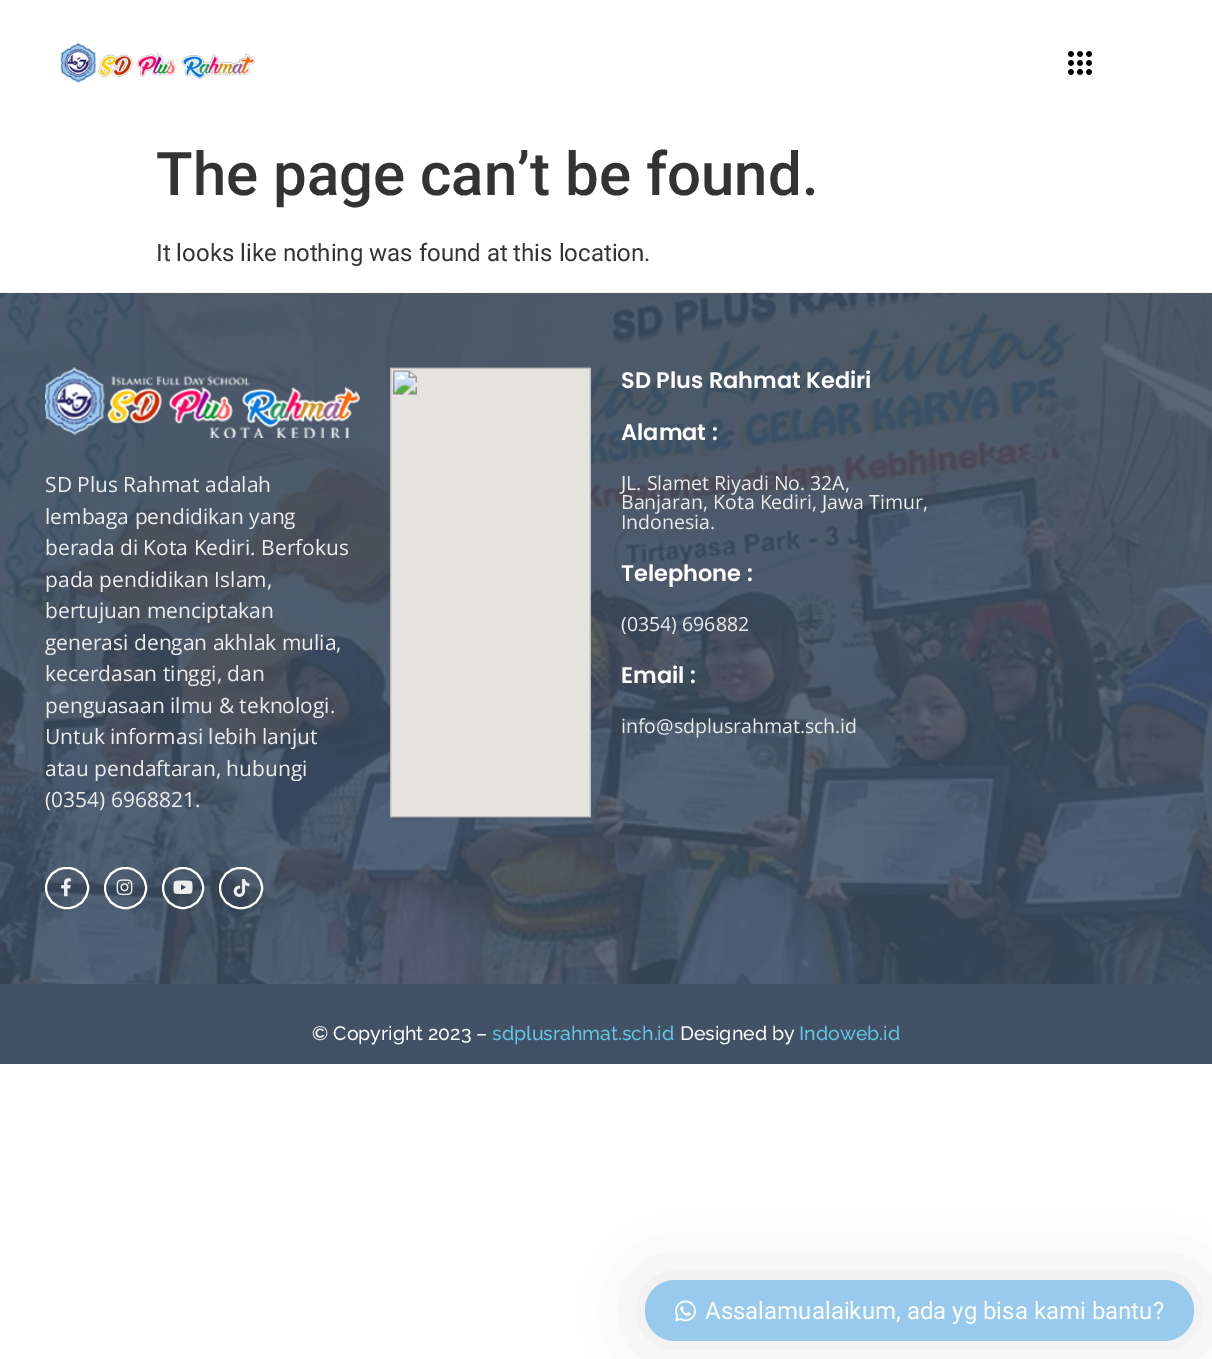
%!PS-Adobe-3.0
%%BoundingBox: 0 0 1212 1359
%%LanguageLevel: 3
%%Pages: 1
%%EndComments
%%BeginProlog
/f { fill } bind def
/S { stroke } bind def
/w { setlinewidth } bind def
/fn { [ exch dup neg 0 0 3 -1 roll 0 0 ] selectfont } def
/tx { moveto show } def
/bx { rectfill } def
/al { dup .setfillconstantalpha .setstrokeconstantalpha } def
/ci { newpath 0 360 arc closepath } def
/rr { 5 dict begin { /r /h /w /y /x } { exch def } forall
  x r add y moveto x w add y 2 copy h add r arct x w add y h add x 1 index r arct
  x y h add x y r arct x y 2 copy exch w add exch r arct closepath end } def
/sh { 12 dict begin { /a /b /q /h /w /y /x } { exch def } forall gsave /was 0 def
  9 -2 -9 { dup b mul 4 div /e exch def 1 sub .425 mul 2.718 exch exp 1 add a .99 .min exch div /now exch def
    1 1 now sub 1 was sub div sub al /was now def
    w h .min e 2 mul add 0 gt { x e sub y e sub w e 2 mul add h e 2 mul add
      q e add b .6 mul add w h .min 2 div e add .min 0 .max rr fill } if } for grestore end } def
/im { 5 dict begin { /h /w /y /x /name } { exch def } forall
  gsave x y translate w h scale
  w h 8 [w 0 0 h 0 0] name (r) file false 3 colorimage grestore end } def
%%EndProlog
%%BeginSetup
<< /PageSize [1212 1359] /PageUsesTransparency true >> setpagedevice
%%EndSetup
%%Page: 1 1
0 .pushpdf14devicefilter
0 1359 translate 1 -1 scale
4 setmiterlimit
1 setgray
0 0 1212 1359 bx
(image0.raw) 60 42 195 42 im
(image1.raw) 1068 51 24 24 im
/Roboto-Medium 60 fn
0.2 setgray
(The page can’t be found.) 156 195 tx
/Roboto-Regular 24 fn
(It looks like nothing was found at this location.) 156 261 tx
0.243 0.302 0.384 setrgbcolor
0 293 1212 691 bx
(image2.raw) 0 292 1212 692 im
(image3.raw) 45 367 315 71 im
/OpenSans-Regular 21 fn
0.929 setgray
(SD Plus Rahmat adalah) 45 492 tx
(lembaga pendidikan yang) 45 524 tx
(berada di Kota Kediri. Berfokus) 45 555 tx
(pada pendidikan Islam,) 45 587 tx
(bertujuan menciptakan) 45 618 tx
(generasi dengan akhlak mulia,) 45 650 tx
(kecerdasan tinggi, dan) 45 681 tx
(penguasaan ilmu & teknologi.) 45 713 tx
(Untuk informasi lebih lanjut) 45 744 tx
(atau pendaftaran, hubungi) 45 776 tx
(\(0354\) 6968821.) 45 807 tx
1 setgray
2 w
46 868 42 40 20 rr S
(image4.raw) 61 878 10 19 im
105 868 41 40 20 rr S
(image5.raw) 116 879 17 17 im
183 888 20 ci S
(image6.raw) 173 880 20 14 im
220 868 42 40 20 rr S
(image7.raw) 233 879 17 18 im
(image8.raw) 390 367 201 451 im
/Poppins-SemiBold 22.5 fn
(SD Plus Rahmat Kediri) 621 388 tx
(Alamat :) 621 440 tx
/OpenSans-Regular 19.5 fn
0.929 setgray
(JL. Slamet Riyadi No. 32A,) 621 490 tx
(Banjaran, Kota Kediri, Jawa Timur,) 621 509 tx
(Indonesia.) 621 529 tx
/Poppins-SemiBold 22.5 fn
1 setgray
(Telephone :) 621 581 tx
/OpenSans-Regular 19.5 fn
0.929 setgray
(\(0354\) 696882) 621 631 tx
/Poppins-SemiBold 22.5 fn
1 setgray
(Email :) 621 683 tx
/OpenSans-Regular 19.5 fn
0.929 setgray
(info@sdplusrahmat.sch.id) 621 733 tx
0.259 0.318 0.4 setrgbcolor
0 984 1212 80 bx
/Raleway-Medium 19.5 fn
1 setgray
(© Copyright 2023 –) 312 1040 tx
0.384 0.773 0.89 setrgbcolor
(sdplusrahmat.sch.id) 492 1040 tx
1 setgray
(Designed by) 680 1040 tx
0.384 0.773 0.89 setrgbcolor
(Indoweb.id) 799 1040 tx
0 setgray
645 1280 549 61 30 37.5 0.1 sh
0.596 0.792 0.933 setrgbcolor
645 1280 549 61 30 rr f
(image9.raw) 675 1300 21 22 im
/Roboto-Regular 24 fn
1 setgray
(Assalamualaikum, ada yg bisa kami bantu?) 705 1319 tx
.poppdf14devicefilter showpage
%%EOF
